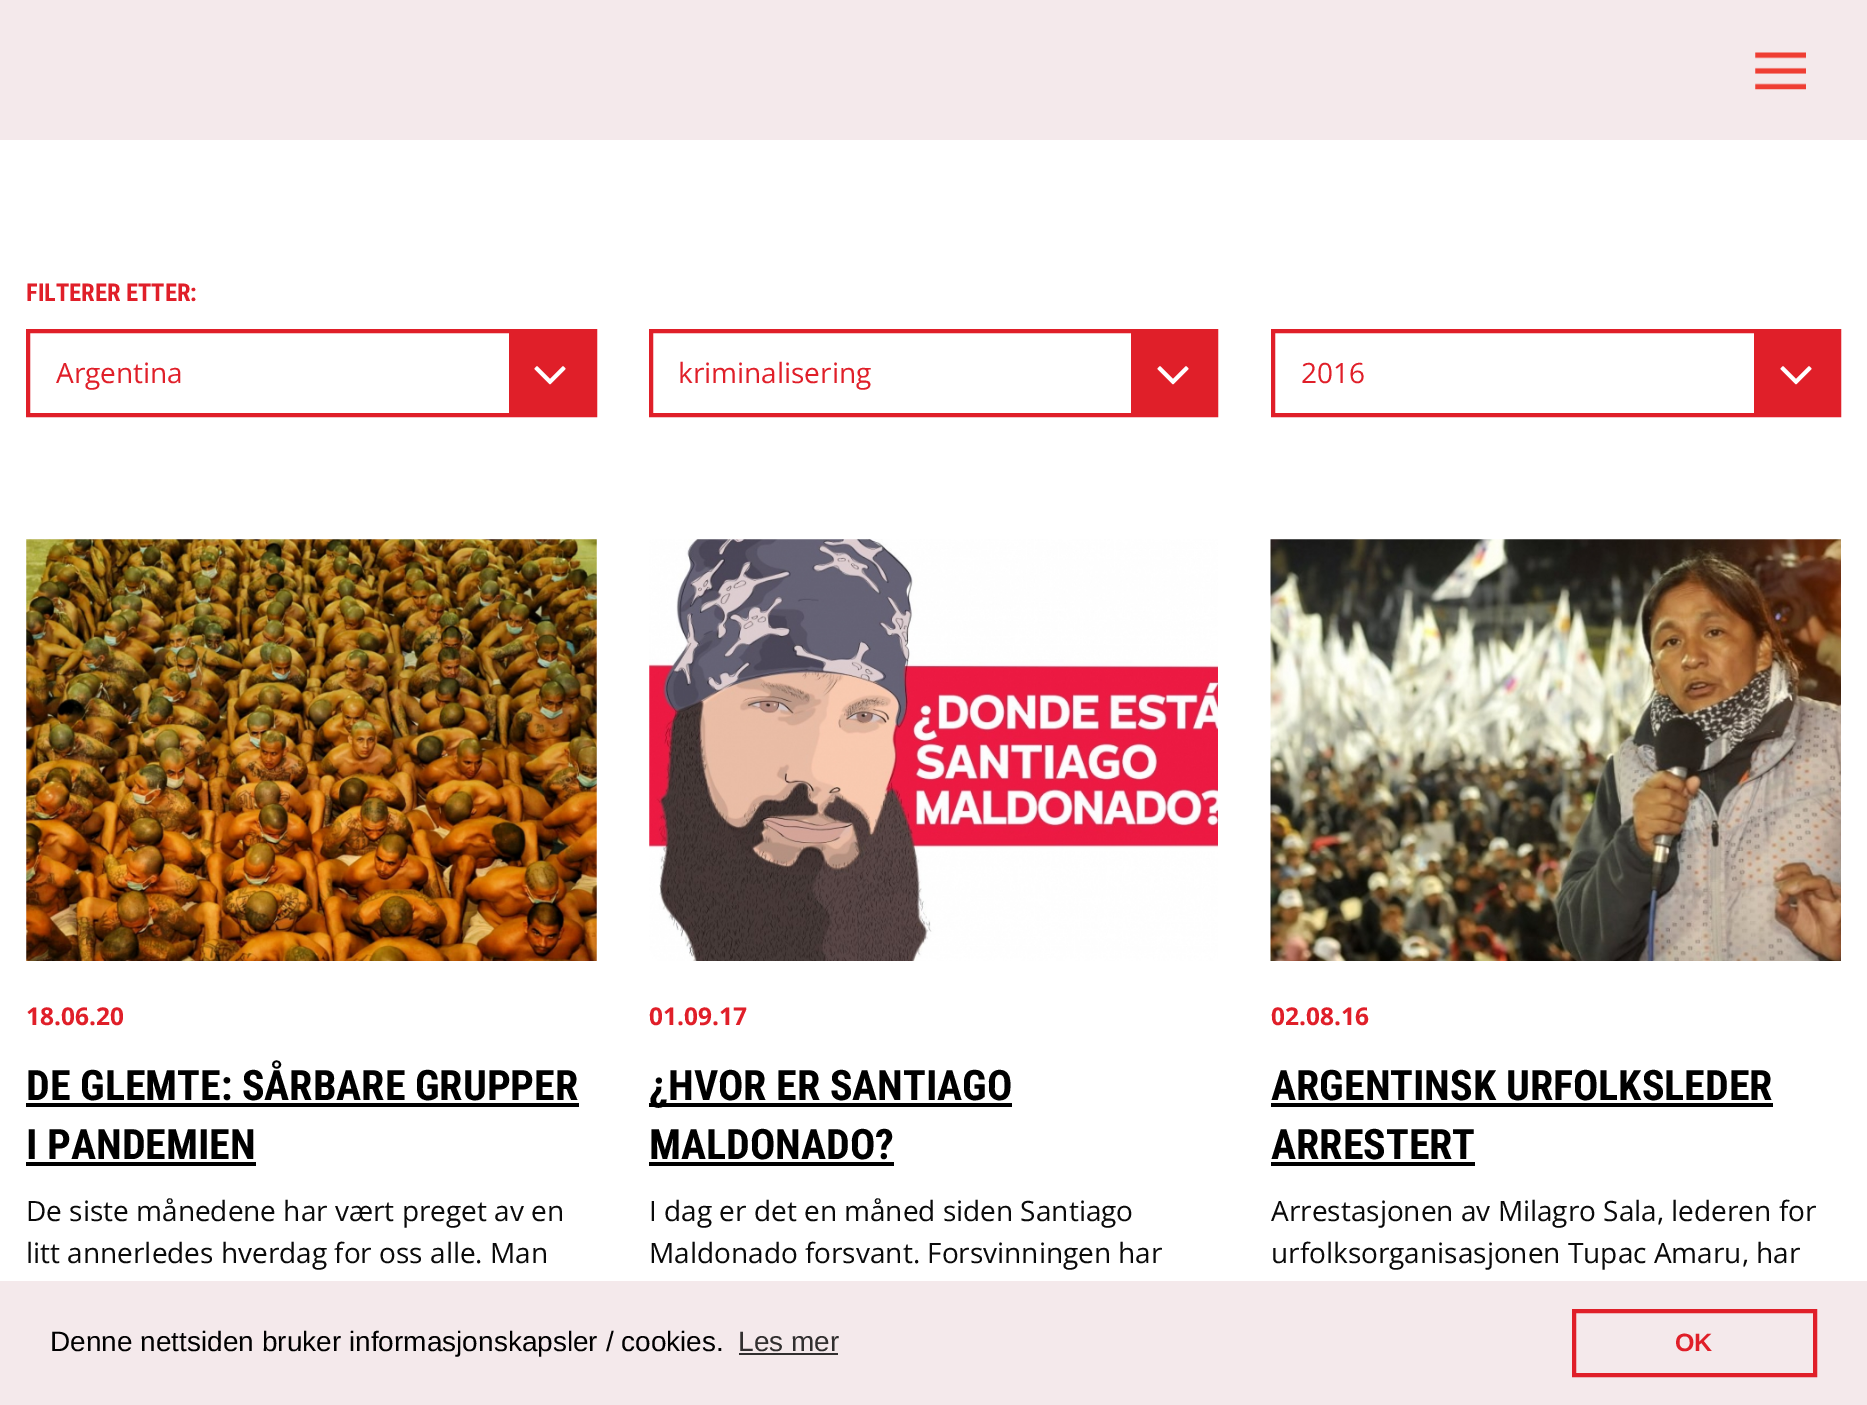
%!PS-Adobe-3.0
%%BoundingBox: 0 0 1867 1405
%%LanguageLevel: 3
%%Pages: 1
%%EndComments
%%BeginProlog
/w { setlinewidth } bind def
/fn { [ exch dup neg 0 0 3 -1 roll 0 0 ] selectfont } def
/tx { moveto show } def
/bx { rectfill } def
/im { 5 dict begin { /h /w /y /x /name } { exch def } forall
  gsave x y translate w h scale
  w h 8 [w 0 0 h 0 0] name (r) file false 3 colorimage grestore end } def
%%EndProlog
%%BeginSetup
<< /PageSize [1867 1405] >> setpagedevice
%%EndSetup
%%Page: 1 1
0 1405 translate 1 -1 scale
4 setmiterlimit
1 setgray
0 0 1867 1405 bx
0.957 0.914 0.922 setrgbcolor
0 0 1867 140 bx
(image0.raw) 1755 52 51 38 im
/RobotoCondensed-Bold 24.5 fn
0.878 0.122 0.161 setrgbcolor
(FILTERER ETTER:) 26 301 tx
4 w
28 331 567 84 rectstroke
/OpenSans-Regular 28 fn
(Argentina) 56 383 tx
509 333 84 80 bx
(image1.raw) 534 366 32 19 im
651 331 565 84 rectstroke
(kriminalisering) 678 383 tx
1131 333 83 80 bx
(image1.raw) 1157 366 32 19 im
1273 331 566 84 rectstroke
(2016) 1301 383 tx
1754 333 83 80 bx
(image1.raw) 1780 366 32 19 im
(image2.raw) 26 539 571 422 im
/OpenSans-Bold 24.5 fn
(18.06.20) 26 1025 tx
/RobotoCondensed-Bold 42 fn
0 setgray
(DE GLEMTE: SÅRBARE GRUPPER) 26 1100 tx
26 1103 553 4 bx
(I PANDEMIEN) 26 1159 tx
26 1162 230 4 bx
/OpenSans-Regular 28 fn
0.039 setgray
(De siste månedene har vært preget av en) 26 1221 tx
(litt annerledes hverdag for oss alle. Man) 26 1263 tx
(image3.raw) 649 539 569 422 im
/OpenSans-Bold 24.5 fn
0.878 0.122 0.161 setrgbcolor
(01.09.17) 649 1025 tx
0 setgray
649 1103 363 4 bx
/RobotoCondensed-Bold 42 fn
(¿HVOR ER SANTIAGO) 649 1100 tx
(MALDONADO?) 649 1159 tx
649 1162 245 4 bx
/OpenSans-Regular 28 fn
0.039 setgray
(I dag er det en måned siden Santiago) 649 1221 tx
(Maldonado forsvant. Forsvinningen har) 649 1263 tx
(image4.raw) 1270 539 571 422 im
/OpenSans-Bold 24.5 fn
0.878 0.122 0.161 setrgbcolor
(02.08.16) 1271 1025 tx
/RobotoCondensed-Bold 42 fn
0 setgray
(ARGENTINSK URFOLKSLEDER) 1271 1100 tx
1271 1103 502 4 bx
(ARRESTERT) 1271 1159 tx
1271 1162 204 4 bx
/OpenSans-Regular 28 fn
0.039 setgray
(Arrestasjonen av Milagro Sala, lederen for) 1271 1221 tx
(urfolksorganisasjonen Tupac Amaru, har) 1271 1263 tx
0.957 0.914 0.922 setrgbcolor
0 1281 1867 124 bx
/LiberationSans-Regular 28 fn
0 setgray
(Denne nettsiden bruker informasjonskapsler / cookies.) 50 1351 tx
0.192 0.184 0.184 setrgbcolor
(Les mer) 738 1351 tx
739 1353 99 2 bx
0.878 0.122 0.161 setrgbcolor
1574 1311 241 64 rectstroke
/LiberationSans-Bold 25 fn
(OK) 1675 1351 tx
showpage
%%EOF
